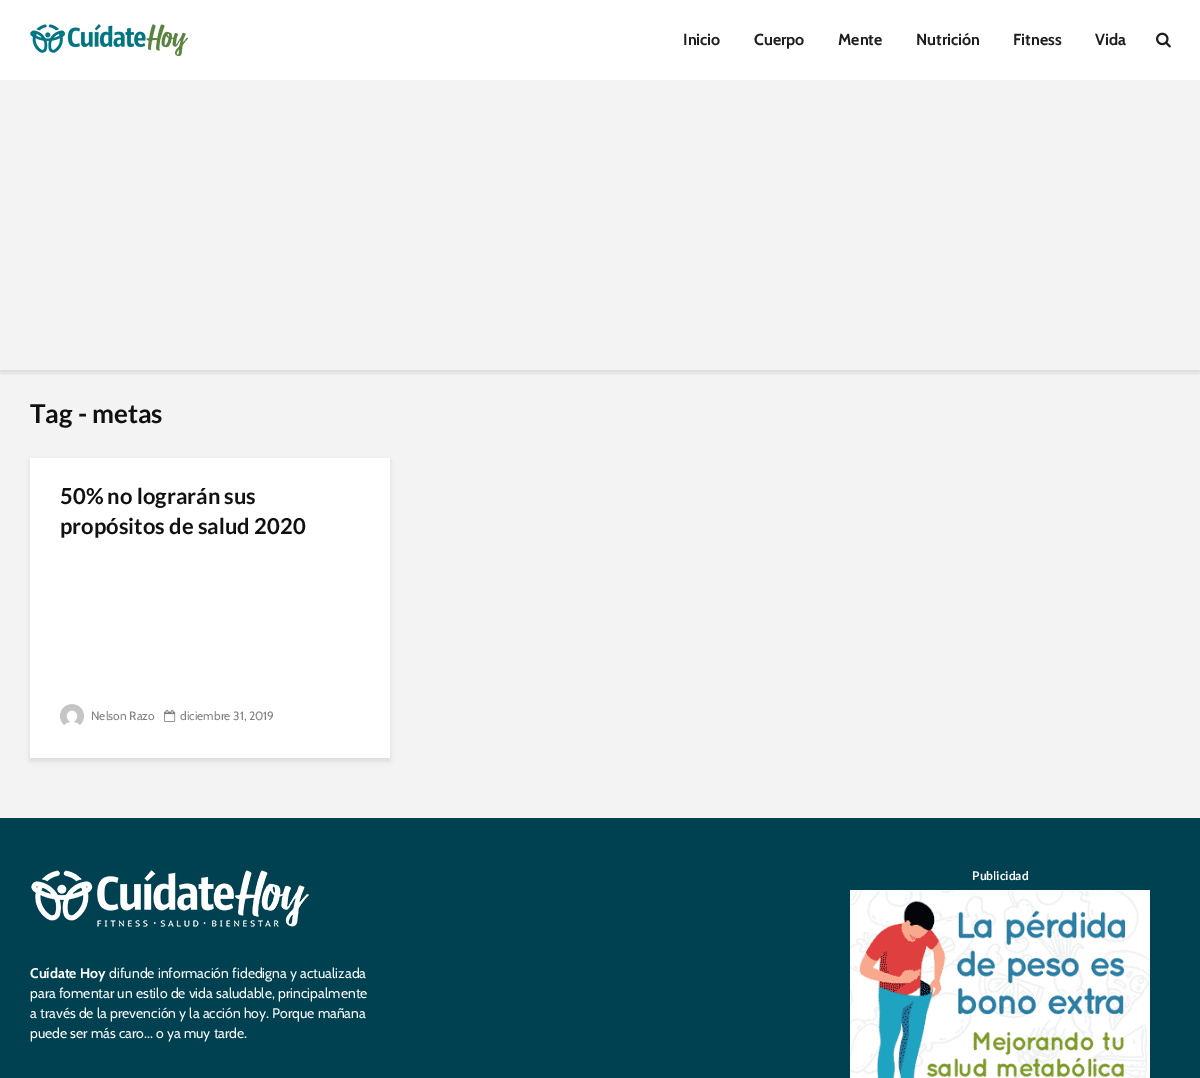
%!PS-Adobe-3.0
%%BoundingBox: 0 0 1200 1078
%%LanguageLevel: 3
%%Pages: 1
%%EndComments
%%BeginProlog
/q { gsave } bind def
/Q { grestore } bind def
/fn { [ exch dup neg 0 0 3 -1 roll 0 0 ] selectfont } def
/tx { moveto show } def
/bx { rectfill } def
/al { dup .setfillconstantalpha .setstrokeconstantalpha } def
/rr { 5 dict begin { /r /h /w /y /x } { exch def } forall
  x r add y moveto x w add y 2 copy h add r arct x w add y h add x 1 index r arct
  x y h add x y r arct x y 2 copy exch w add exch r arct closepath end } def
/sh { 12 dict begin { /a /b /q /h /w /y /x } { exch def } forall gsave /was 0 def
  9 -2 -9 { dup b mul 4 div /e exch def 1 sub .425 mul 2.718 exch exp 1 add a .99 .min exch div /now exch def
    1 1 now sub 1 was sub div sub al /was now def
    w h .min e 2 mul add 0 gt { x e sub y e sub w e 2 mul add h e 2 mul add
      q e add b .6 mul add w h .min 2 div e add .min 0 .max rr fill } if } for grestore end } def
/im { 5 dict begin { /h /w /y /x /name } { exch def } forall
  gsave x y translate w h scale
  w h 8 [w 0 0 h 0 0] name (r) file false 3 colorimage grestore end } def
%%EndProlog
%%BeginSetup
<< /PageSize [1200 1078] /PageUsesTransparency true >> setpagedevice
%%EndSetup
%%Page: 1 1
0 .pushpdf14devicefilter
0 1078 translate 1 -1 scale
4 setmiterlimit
0.953 setgray
0 0 1200 1078 bx
q
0 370 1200 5 rectclip
0 0.004 0.004 setrgbcolor
0 3 1200 370 0 2.5 0.1 sh
Q
1 setgray
0 0 1200 80 bx
(image0.raw) 30 24 158 32 im
/Cabin-Bold 16 fn
0.118 setgray
(Inicio) 683 45 tx
(Cuerpo) 754 45 tx
(Mente) 838 45 tx
(Nutrición) 916 45 tx
(Fitness) 1013 45 tx
(Vida) 1095 45 tx
(image1.raw) 1156 32 15 16 im
/Lato-Bold 26 fn
0.067 setgray
(Tag - metas) 30 423 tx
0 0.004 0.004 setrgbcolor
30 461 360 300 0 2.5 0.1 sh
1 setgray
30 458 360 300 bx
/Lato-Bold 22 fn
0.067 setgray
(50% no lograrán sus) 60 504 tx
(propósitos de salud 2020) 60 534 tx
(image2.raw) 60 704 24 22 im
/Cabin-Regular 12 fn
0.506 setgray
(Nelson Razo) 91 720 tx
(image3.raw) 164 709 12 13 im
(diciembre 31, 2019) 180 720 tx
0 0.255 0.318 setrgbcolor
0 818 1200 260 bx
/Lato-Bold 12 fn
1 setgray
(Publicidad) 972 880 tx
(image4.raw) 850 890 300 188 im
(image5.raw) 31 870 278 57 im
/Cabin-Bold 14 fn
(Cuídate Hoy) 30 978 tx
/Cabin-Regular 14 fn
(difunde información fidedigna y actualizada) 109 978 tx
(para fomentar un estilo de vida saludable, principalmente) 30 998 tx
(a través de la prevención y la acción hoy. Porque mañana) 30 1018 tx
(puede ser más caro... o ya muy tarde.) 30 1038 tx
.poppdf14devicefilter showpage
%%EOF
